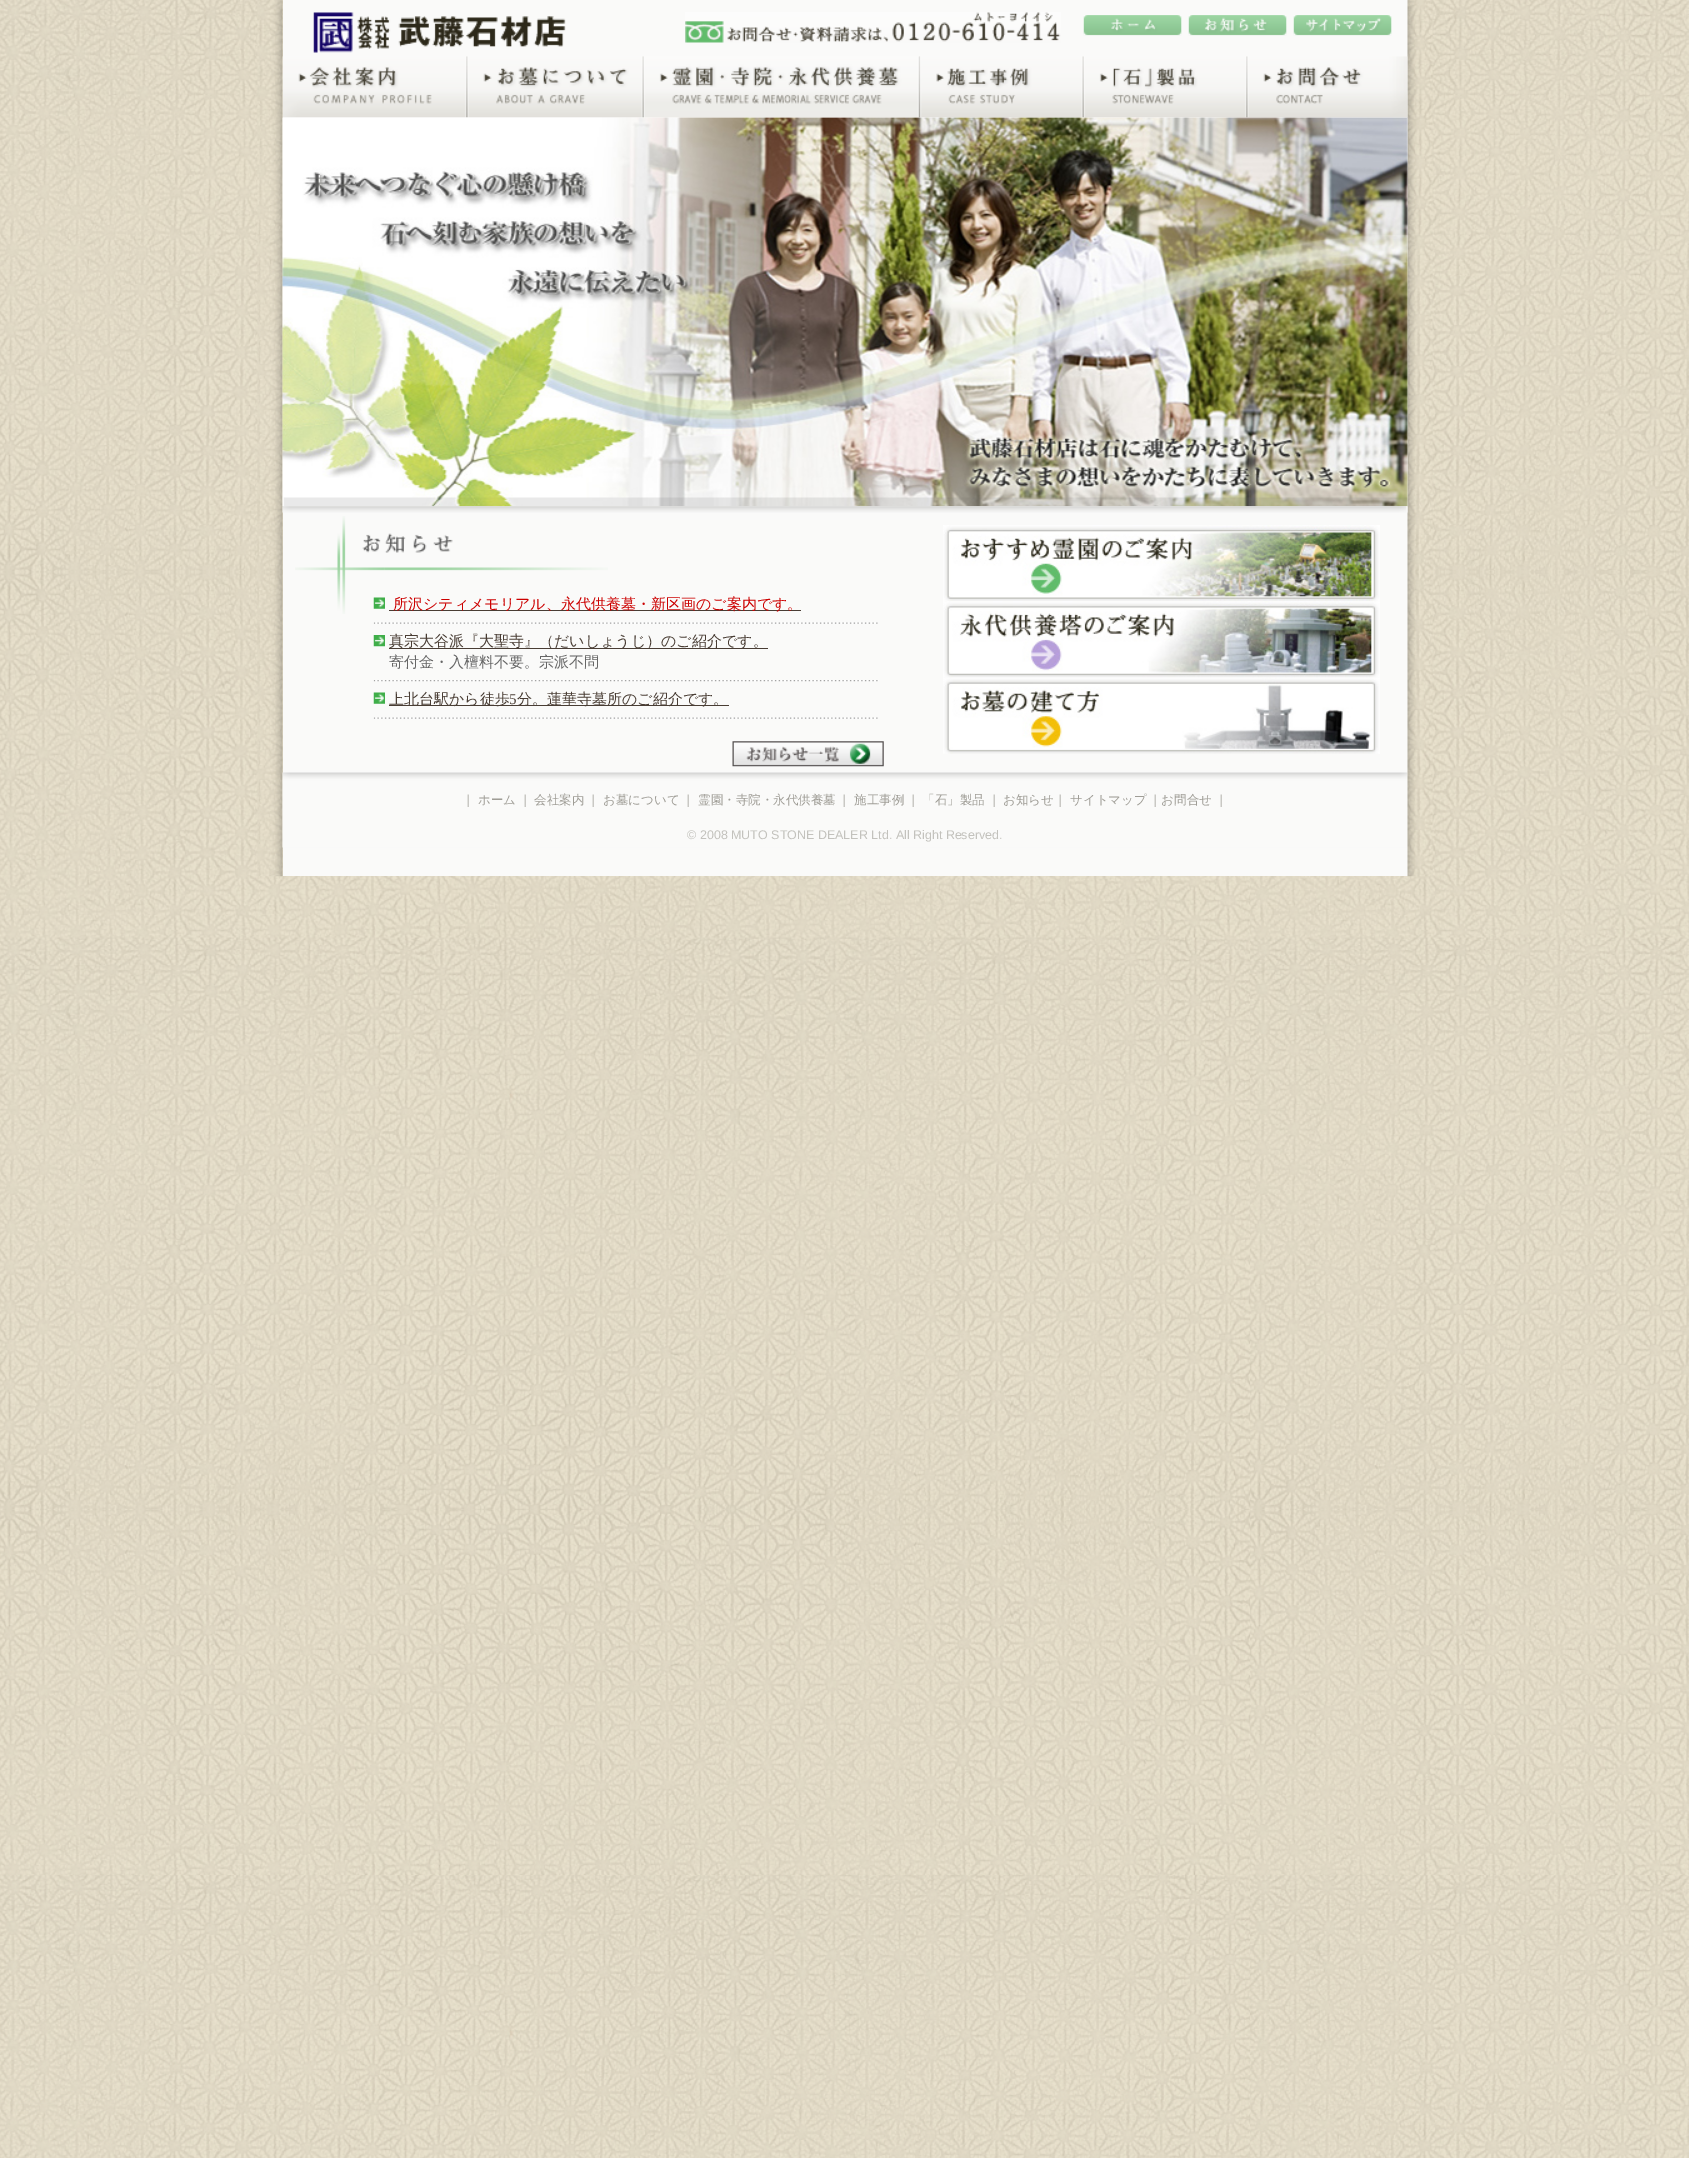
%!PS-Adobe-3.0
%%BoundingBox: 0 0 1689 2158
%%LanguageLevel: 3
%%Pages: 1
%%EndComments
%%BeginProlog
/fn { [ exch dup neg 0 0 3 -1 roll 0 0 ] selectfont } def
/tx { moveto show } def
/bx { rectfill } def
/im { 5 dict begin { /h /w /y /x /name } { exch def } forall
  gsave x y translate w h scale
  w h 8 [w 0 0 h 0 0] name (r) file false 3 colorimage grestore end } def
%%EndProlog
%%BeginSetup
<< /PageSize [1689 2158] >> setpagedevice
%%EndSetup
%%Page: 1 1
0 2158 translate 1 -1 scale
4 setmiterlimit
1 setgray
0 0 1689 2158 bx
(image0.raw) 0 0 1689 2158 im
(image1.raw) 257 0 26 877 im
0.98 0.98 0.976 setrgbcolor
283 0 1125 876 bx
(image2.raw) 313 12 253 41 im
(image3.raw) 685 12 376 31 im
(image4.raw) 1083 15 99 21 im
(image5.raw) 1188 15 99 21 im
(image6.raw) 1293 15 99 21 im
(image24.raw) 282 772 1126 76 im
(image25.raw) 1407 0 26 877 im
(image13.raw) 282 117 1126 390 im
(image7.raw) 282 56 185 62 im
(image8.raw) 466 56 177 62 im
(image9.raw) 642 56 277 62 im
(image10.raw) 918 56 165 62 im
(image11.raw) 1082 56 165 62 im
(image12.raw) 1246 56 162 62 im
(image14.raw) 282 506 1126 7 im
(image15.raw) 295 516 313 98 im
(image16.raw) 373 597 12 12 im
0.286 0.239 0.204 setrgbcolor
389 610 412 1 bx
/WenQuanYiZenHei-Medium 15 fn
0.8 0 0 setrgbcolor
(所沢シティメモリアル、永代供養墓・新区画のご案内です。) 393 609 tx
(image17.raw) 373 622 505 2 im
(image18.raw) 373 635 12 12 im
0.286 0.239 0.204 setrgbcolor
389 648 379 1 bx
(真宗大谷派『大聖寺』（だいしょうじ）のご紹介です。) 389 646 tx
0.4 setgray
(寄付金・入檀料不要。宗派不問) 389 667 tx
(image19.raw) 373 680 506 2 im
(image16.raw) 373 692 12 12 im
0.286 0.239 0.204 setrgbcolor
389 705 340 1 bx
(上北台駅から徒歩) 389 704 tx
/LiberationSerif-Regular 15 fn
(5) 509 704 tx
/WenQuanYiZenHei-Medium 15 fn
(分。蓮華寺墓所のご紹介です。) 517 704 tx
(image17.raw) 373 717 505 2 im
(image20.raw) 943 525 437 76 im
(image21.raw) 943 601 437 77 im
(image22.raw) 943 677 437 77 im
(image23.raw) 732 741 152 26 im
/WenQuanYiZenHei-Medium 12.5 fn
0.624 0.616 0.588 setrgbcolor
(｜) 462 804 tx
(ホーム) 478 804 tx
(｜) 519 804 tx
(会社案内) 534 804 tx
(｜) 587 804 tx
(お墓について) 603 804 tx
(｜) 682 804 tx
(霊園・寺院・永代供養墓) 698 804 tx
(｜) 838 804 tx
(施工事例) 854 804 tx
(｜) 907 804 tx
(「石」製品) 922 804 tx
(｜) 988 804 tx
(お知らせ｜) 1003 804 tx
(サイトマップ) 1070 804 tx
(｜お問合せ) 1149 804 tx
(｜) 1215 804 tx
/LiberationSans-Regular 12.5 fn
0.765 0.761 0.741 setrgbcolor
(© 2008 MUTO STONE DEALER Ltd. All Right Reserved.) 687 839 tx
showpage
%%EOF
